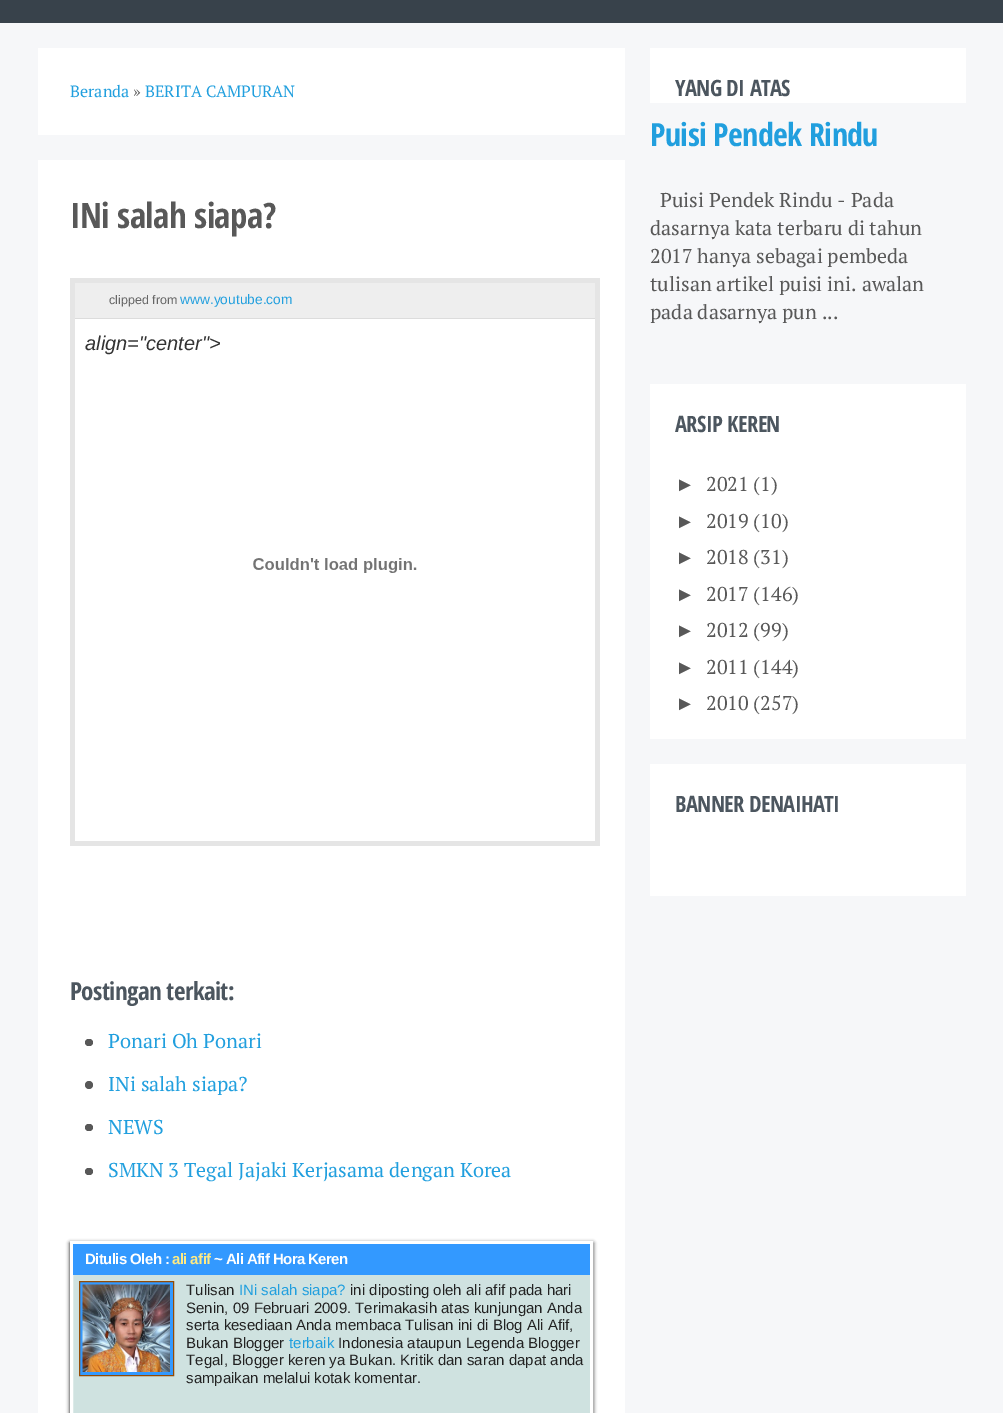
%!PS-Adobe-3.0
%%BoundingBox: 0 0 1003 1413
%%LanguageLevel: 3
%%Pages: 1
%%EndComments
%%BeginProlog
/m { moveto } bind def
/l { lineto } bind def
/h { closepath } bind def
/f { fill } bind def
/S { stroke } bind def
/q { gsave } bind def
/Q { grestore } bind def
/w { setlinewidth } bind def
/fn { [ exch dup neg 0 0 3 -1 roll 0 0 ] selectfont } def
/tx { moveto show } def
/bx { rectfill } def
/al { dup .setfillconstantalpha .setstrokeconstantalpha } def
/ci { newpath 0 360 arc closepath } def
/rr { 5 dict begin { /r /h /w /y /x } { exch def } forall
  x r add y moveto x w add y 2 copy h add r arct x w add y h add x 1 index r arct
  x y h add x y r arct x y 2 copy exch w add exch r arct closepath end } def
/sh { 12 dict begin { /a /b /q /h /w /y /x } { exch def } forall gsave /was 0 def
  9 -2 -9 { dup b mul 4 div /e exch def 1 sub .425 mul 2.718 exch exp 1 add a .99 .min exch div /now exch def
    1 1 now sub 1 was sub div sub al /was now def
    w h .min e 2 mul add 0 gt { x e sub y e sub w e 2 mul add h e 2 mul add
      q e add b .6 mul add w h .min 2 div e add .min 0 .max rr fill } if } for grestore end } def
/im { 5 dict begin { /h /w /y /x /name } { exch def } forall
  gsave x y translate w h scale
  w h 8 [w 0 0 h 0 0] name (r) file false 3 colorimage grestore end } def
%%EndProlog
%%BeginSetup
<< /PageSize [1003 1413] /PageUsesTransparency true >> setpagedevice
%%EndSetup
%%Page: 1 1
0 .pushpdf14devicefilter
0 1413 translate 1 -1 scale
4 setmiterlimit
0.965 0.969 0.976 setrgbcolor
0 0 1003 1413 bx
0.22 0.259 0.294 setrgbcolor
0 0 1003 23 bx
1 setgray
38 48 587 87 bx
/PTSerif-Regular 16.25 fn
0.129 0.624 0.871 setrgbcolor
(Beranda) 70 97 tx
0.345 setgray
(») 133 97 tx
0.129 0.624 0.871 setrgbcolor
(BERITA CAMPURAN) 145 97 tx
1 setgray
38 160 587 1253 bx
/OpenSansCondensed-Bold 35 fn
0.345 setgray
70 228 m -0.6 0 (INi salah siapa?) ashow
0.898 setgray
70 278 530 5 bx
595 278 5 568 bx
70 841 530 5 bx
70 278 5 568 bx
0.933 setgray
75 283 520 35 bx
0.863 setgray
75 318 520 1 bx
/LiberationSans-Regular 12.5 fn
0.4 setgray
(clipped from) 109 304 tx
/LiberationSans-Regular 13.75 fn
0.129 0.624 0.871 setrgbcolor
(www.youtube.com) 180 304 tx
/LiberationSans-Italic 20 fn
0.2 setgray
(align="center">) 85 350 tx
(image0.raw) 253 558 164 15 im
/OpenSansCondensed-Bold 25 fn
0.298 0.337 0.373 setrgbcolor
70 1000 m -0.6 0 (Postingan terkait:) ashow
0.345 setgray
85 1039 8 7 3.5 rr f
/PTSerif-Regular 20 fn
0.129 0.624 0.871 setrgbcolor
(Ponari Oh Ponari) 108 1048 tx
0.345 setgray
89 1085 4 ci f
0.129 0.624 0.871 setrgbcolor
(INi salah siapa?) 108 1091 tx
0.345 setgray
85 1124 8 7 3.5 rr f
0.129 0.624 0.871 setrgbcolor
(NEWS) 108 1134 tx
0.345 setgray
85 1168 8 7 3.5 rr f
0.129 0.624 0.871 setrgbcolor
(SMKN 3 Tegal Jajaki Kerjasama dengan Korea) 108 1177 tx
0 setgray
70 1243 523 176 0 2 1 sh
0.812 0.886 0.878 setrgbcolor
73 1275 517 138 bx
1 setgray
3 w
71.5 1242.5 520 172 rectstroke
0.2 0.6 1 setrgbcolor
73 1244 517 31 bx
/LiberationSans-Bold 15 fn
1 setgray
85 1264 m -0.6 0 (Ditulis Oleh :) ashow
0.996 0.918 0.514 setrgbcolor
172 1264 m -0.6 0 (ali afif) ashow
1 setgray
214 1264 m -0.6 0 (~ Ali Afif Hora Keren) ashow
0.2 0.6 1 setrgbcolor
79.5 1281.5 m 173.5 1281.5 l 173.5 1375.5 l 79.5 1375.5 l h q f Q
0.584 0.294 0.008 setrgbcolor
1 w
S
(image1.raw) 82 1284 88 88 im
/LiberationSans-Regular 15 fn
0.133 setgray
(Tulisan) 186 1295 tx
0.129 0.624 0.871 setrgbcolor
(INi salah siapa?) 239 1295 tx
0.133 setgray
(ini diposting oleh ali afif pada hari) 350 1295 tx
(Senin, 09 Februari 2009. Terimakasih atas kunjungan Anda) 186 1313 tx
(serta kesediaan Anda membaca Tulisan ini di Blog Ali Afif,) 186 1330 tx
(Bukan Blogger) 186 1348 tx
0.129 0.624 0.871 setrgbcolor
(terbaik) 289 1348 tx
0.133 setgray
(Indonesia ataupun Legenda Blogger) 338 1348 tx
(Tegal, Blogger keren ya Bukan. Kritik dan saran dapat anda) 186 1365 tx
(sampaikan melalui kotak komentar.) 186 1383 tx
1 setgray
650 48 316 55 bx
/OpenSansCondensed-Bold 22.5 fn
0.298 0.337 0.373 setrgbcolor
675 96 m -0.6 0 (YANG DI ATAS) ashow
/OpenSansCondensed-Bold 32 fn
0.129 0.624 0.871 setrgbcolor
650 146 m -0.6 0 (Puisi Pendek Rindu) ashow
/PTSerif-Regular 20 fn
0.345 setgray
(Puisi Pendek Rindu - Pada) 660 207 tx
(dasarnya kata terbaru di tahun) 650 235 tx
(2017 hanya sebagai pembeda) 650 263 tx
(tulisan artikel puisi ini. awalan) 650 291 tx
(pada dasarnya pun ...) 650 319 tx
1 setgray
650 384 316 355 bx
/OpenSansCondensed-Bold 22.5 fn
0.298 0.337 0.373 setrgbcolor
675 432 m -0.6 0 (ARSIP KEREN) ashow
/LiberationSans-Regular 20 fn
0.345 setgray
(►) 675 491 tx
/PTSerif-Regular 20 fn
(2021 \(1\)) 706 491 tx
/LiberationSans-Regular 20 fn
(►) 675 528 tx
/PTSerif-Regular 20 fn
(2019 \(10\)) 706 528 tx
/LiberationSans-Regular 20 fn
(►) 675 564 tx
/PTSerif-Regular 20 fn
(2018 \(31\)) 706 564 tx
/LiberationSans-Regular 20 fn
(►) 675 601 tx
/PTSerif-Regular 20 fn
(2017 \(146\)) 706 601 tx
/LiberationSans-Regular 20 fn
(►) 675 637 tx
/PTSerif-Regular 20 fn
(2012 \(99\)) 706 637 tx
/LiberationSans-Regular 20 fn
(►) 675 674 tx
/PTSerif-Regular 20 fn
(2011 \(144\)) 706 674 tx
/LiberationSans-Regular 20 fn
(►) 675 710 tx
/PTSerif-Regular 20 fn
(2010 \(257\)) 706 710 tx
1 setgray
650 764 316 132 bx
/OpenSansCondensed-Bold 22.5 fn
0.298 0.337 0.373 setrgbcolor
675 812 m -0.6 0 (BANNER DENAIHATI) ashow
.poppdf14devicefilter showpage
%%EOF
